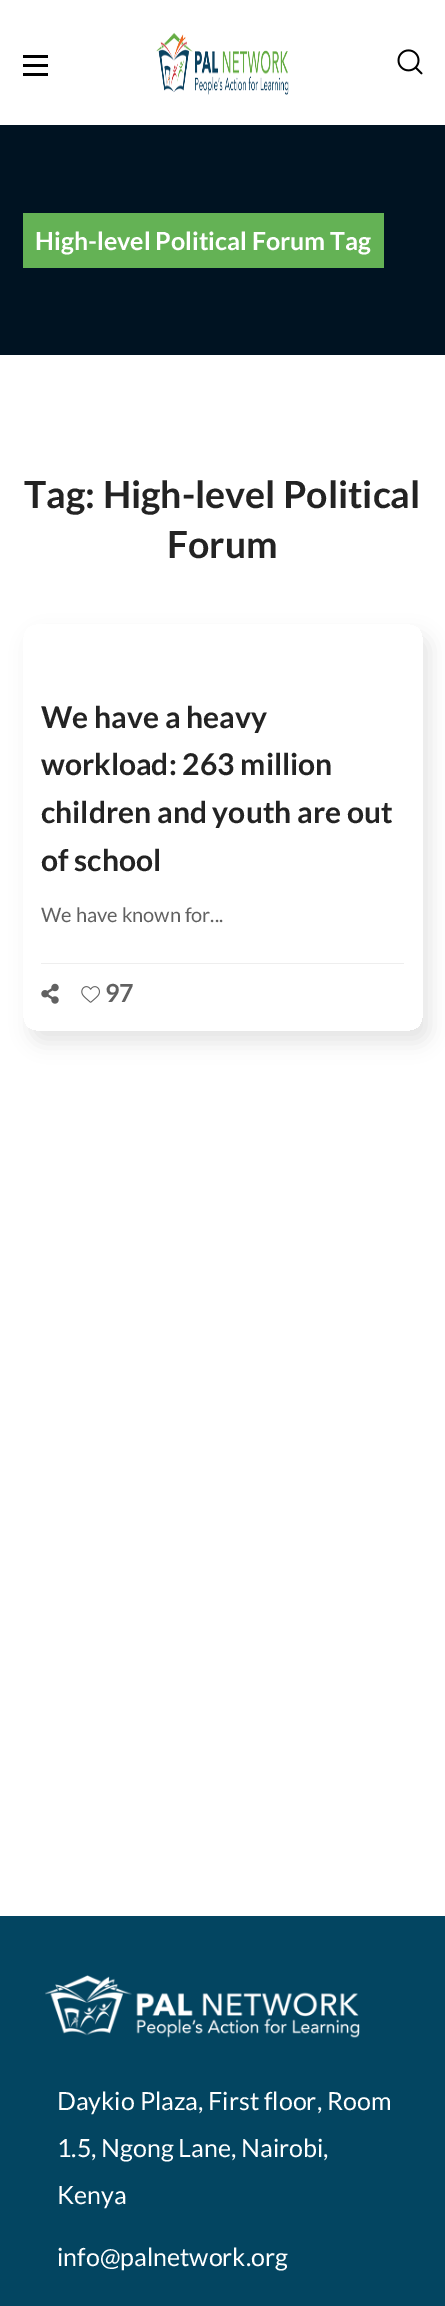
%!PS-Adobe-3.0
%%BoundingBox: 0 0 445 2306
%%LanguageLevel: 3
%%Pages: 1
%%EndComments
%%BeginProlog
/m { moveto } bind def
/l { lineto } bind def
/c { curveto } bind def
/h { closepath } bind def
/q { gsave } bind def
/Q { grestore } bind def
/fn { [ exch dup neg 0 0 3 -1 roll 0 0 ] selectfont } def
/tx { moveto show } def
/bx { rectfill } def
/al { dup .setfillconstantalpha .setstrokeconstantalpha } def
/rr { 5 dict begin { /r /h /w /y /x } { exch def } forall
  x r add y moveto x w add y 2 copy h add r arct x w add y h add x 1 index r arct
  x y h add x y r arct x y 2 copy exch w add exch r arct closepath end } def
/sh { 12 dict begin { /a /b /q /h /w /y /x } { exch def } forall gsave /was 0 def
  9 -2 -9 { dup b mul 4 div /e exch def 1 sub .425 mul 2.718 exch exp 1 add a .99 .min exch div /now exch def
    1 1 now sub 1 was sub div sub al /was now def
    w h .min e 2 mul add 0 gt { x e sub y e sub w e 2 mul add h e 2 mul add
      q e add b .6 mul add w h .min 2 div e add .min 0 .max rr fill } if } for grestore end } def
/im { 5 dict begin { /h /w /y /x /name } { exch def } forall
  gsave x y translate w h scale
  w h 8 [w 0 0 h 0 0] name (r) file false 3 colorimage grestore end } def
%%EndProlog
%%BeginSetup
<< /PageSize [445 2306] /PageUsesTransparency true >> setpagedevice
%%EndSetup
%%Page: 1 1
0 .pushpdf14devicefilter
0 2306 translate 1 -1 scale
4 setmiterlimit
1 setgray
0 0 445 2306 bx
0 setgray
23 55 25 3 bx
23 64 25 3 bx
23 73 25 3 bx
(image0.raw) 156 32 133 63 im
(image1.raw) 397 49 26 26 im
0 0.075 0.133 setrgbcolor
0 125 445 230 bx
0.392 0.698 0.333 setrgbcolor
23 213 361 55 bx
/Lato-Bold 25 fn
1 setgray
(High-level Political Forum Tag) 35 250 tx
/Lato-Bold 37.5 fn
0.137 setgray
(Tag: High-level Political) 24 508 tx
(Forum) 167 558 tx
q
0 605 m 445 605 l 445 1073 l 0 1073 l h 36 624 m 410 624 l 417 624 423 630 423 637 c 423 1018 l 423 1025 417 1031 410 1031 c 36 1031 l 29 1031 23 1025 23 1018 c 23 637 l 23 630 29 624 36 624 c h eoclip newpath
0 setgray
30 635 400 408 13 9.5 0.1 sh
Q
/Lato-Bold 30 fn
(We have a heavy) 41 728 tx
(workload: 263 million) 41 775 tx
(children and youth are out) 41 823 tx
(of school) 41 871 tx
/Lato-Regular 20 fn
0.38 setgray
(We have known for...) 41 922 tx
0.933 setgray
41 963 363 1 bx
(image2.raw) 41 983 18 21 im
(image3.raw) 81 986 19 17 im
/Lato-Bold 25 fn
0.38 setgray
(97) 105 1002 tx
0.012 0.271 0.38 setrgbcolor
0 1916 445 390 bx
(image4.raw) 45 1975 315 63 im
/Lato-Regular 25 fn
1 setgray
(Daykio Plaza, First floor, Room) 57 2110 tx
(1.5, Ngong Lane, Nairobi,) 57 2157 tx
(Kenya) 57 2204 tx
(info@palnetwork.org) 57 2266 tx
.poppdf14devicefilter showpage
%%EOF
